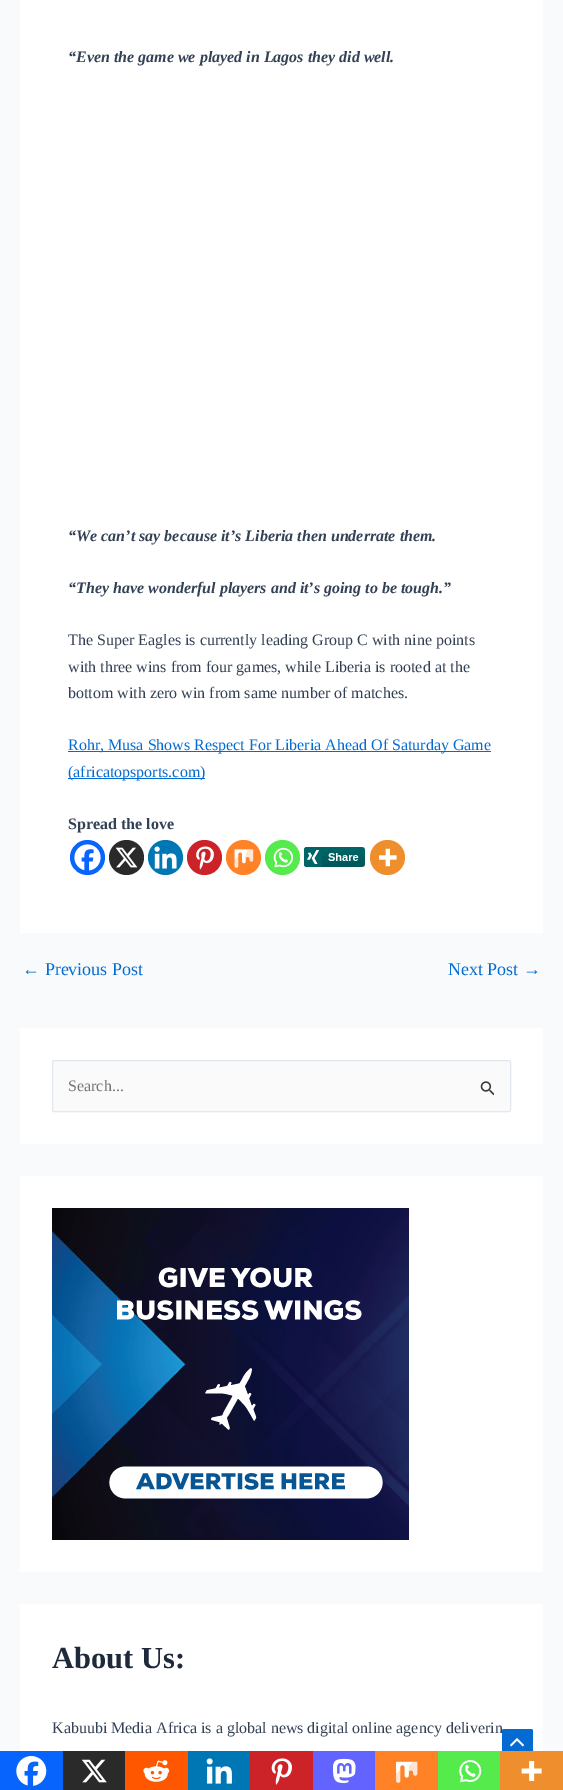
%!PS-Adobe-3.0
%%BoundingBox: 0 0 563 1790
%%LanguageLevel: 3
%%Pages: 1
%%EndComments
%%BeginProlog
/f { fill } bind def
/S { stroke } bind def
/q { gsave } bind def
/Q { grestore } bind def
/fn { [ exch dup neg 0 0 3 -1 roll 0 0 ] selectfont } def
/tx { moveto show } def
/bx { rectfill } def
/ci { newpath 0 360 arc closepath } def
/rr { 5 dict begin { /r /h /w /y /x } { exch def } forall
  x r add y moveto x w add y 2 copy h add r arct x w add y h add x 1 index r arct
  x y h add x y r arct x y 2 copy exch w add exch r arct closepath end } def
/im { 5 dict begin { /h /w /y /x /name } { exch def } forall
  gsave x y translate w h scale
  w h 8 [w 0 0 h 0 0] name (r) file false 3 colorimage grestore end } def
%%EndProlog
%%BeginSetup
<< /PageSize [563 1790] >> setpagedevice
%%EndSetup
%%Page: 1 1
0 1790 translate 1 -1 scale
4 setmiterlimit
0.976 0.98 0.984 setrgbcolor
0 0 563 1790 bx
1 setgray
20 0 523 933 bx
/LiberationSerif-BoldItalic 16 fn
0.2 0.255 0.333 setrgbcolor
(“Even the game we played in Lagos they did well.) 68 62 tx
(“We can’t say because it’s Liberia then underrate them.) 68 541 tx
(“They have wonderful players and it’s going to be tough.”) 68 593 tx
/LiberationSerif-Regular 16 fn
(The Super Eagles is currently leading Group C with nine points) 68 645 tx
(with three wins from four games, while Liberia is rooted at the) 68 672 tx
(bottom with zero win from same number of matches.) 68 698 tx
0.016 0.42 0.824 setrgbcolor
68 751 423 1 bx
(Rohr, Musa Shows Respect For Liberia Ahead Of Saturday Game) 68 750 tx
68 778 137 1 bx
(\(africatopsports.com\)) 68 777 tx
/LiberationSerif-Bold 16 fn
0.2 0.255 0.333 setrgbcolor
(Spread the love) 68 829 tx
0.027 0.396 0.996 setrgbcolor
87.5 857.5 17.5 ci f
(image0.raw) 74 844 27 27 im
0.165 setgray
126.5 857.5 17.5 ci f
(image1.raw) 115 847 23 21 im
0 0.467 0.71 setrgbcolor
165.5 857.5 17.5 ci f
(image2.raw) 154 846 23 23 im
0.8 0.137 0.161 setrgbcolor
204.5 857.5 17.5 ci f
(image3.raw) 196 846 18 24 im
1 0.51 0.149 setrgbcolor
243.5 857.5 17.5 ci f
(image4.raw) 234 849 20 19 im
0.333 0.922 0.298 setrgbcolor
282.5 857.5 17.5 ci f
(image5.raw) 273 847 20 21 im
(image6.raw) 304 847 61 20 im
0.933 0.557 0.176 setrgbcolor
387.5 857.5 17.5 ci f
(image7.raw) 379 848 18 19 im
0.027 0.396 0.996 setrgbcolor
0 1751 63 39 bx
(image8.raw) 16 1756 31 30 im
0.165 setgray
63 1751 62 39 bx
(image9.raw) 81 1759 26 24 im
1 0.341 0 setrgbcolor
125 1751 63 39 bx
(image10.raw) 143 1760 27 22 im
0 0.467 0.71 setrgbcolor
188 1751 62 39 bx
(image11.raw) 206 1758 26 26 im
0.8 0.137 0.161 setrgbcolor
250 1751 63 39 bx
(image12.raw) 271 1758 21 27 im
0.388 0.392 1 setrgbcolor
313 1751 62 39 bx
(image13.raw) 333 1758 23 26 im
1 0.51 0.149 setrgbcolor
375 1751 63 39 bx
(image14.raw) 396 1761 22 22 im
0.333 0.922 0.298 setrgbcolor
438 1751 62 39 bx
(image15.raw) 459 1760 23 23 im
1 setgray
20 1604 523 147 bx
/LiberationSerif-Regular 16 fn
0.2 0.255 0.333 setrgbcolor
(Kabuubi Media Africa is a global news digital online agency deliverin) 52 1733 tx
0.016 0.42 0.824 setrgbcolor
502 1729 31 31 2 rr f
0.933 0.557 0.176 setrgbcolor
500 1751 63 39 bx
(image16.raw) 521 1761 21 20 im
/LiberationSerif-Regular 18 fn
0.016 0.42 0.824 setrgbcolor
(← Previous Post) 22 975 tx
(Next Post →) 448 975 tx
1 setgray
20 1028 523 116 bx
0.98 setgray
52.5 1060.5 458 51 1.5 rr q f Q
0.886 0.91 0.941 setrgbcolor
S
/LiberationSerif-Regular 16 fn
0.459 setgray
(Search...) 68 1091 tx
(image17.raw) 480 1081 14 15 im
1 setgray
20 1176 523 396 bx
(image18.raw) 52 1208 357 332 im
/LiberationSerif-Bold 30.5 fn
0.118 0.161 0.231 setrgbcolor
(About Us:) 52 1668 tx
(image19.raw) 510 1738 15 9 im
showpage
%%EOF
